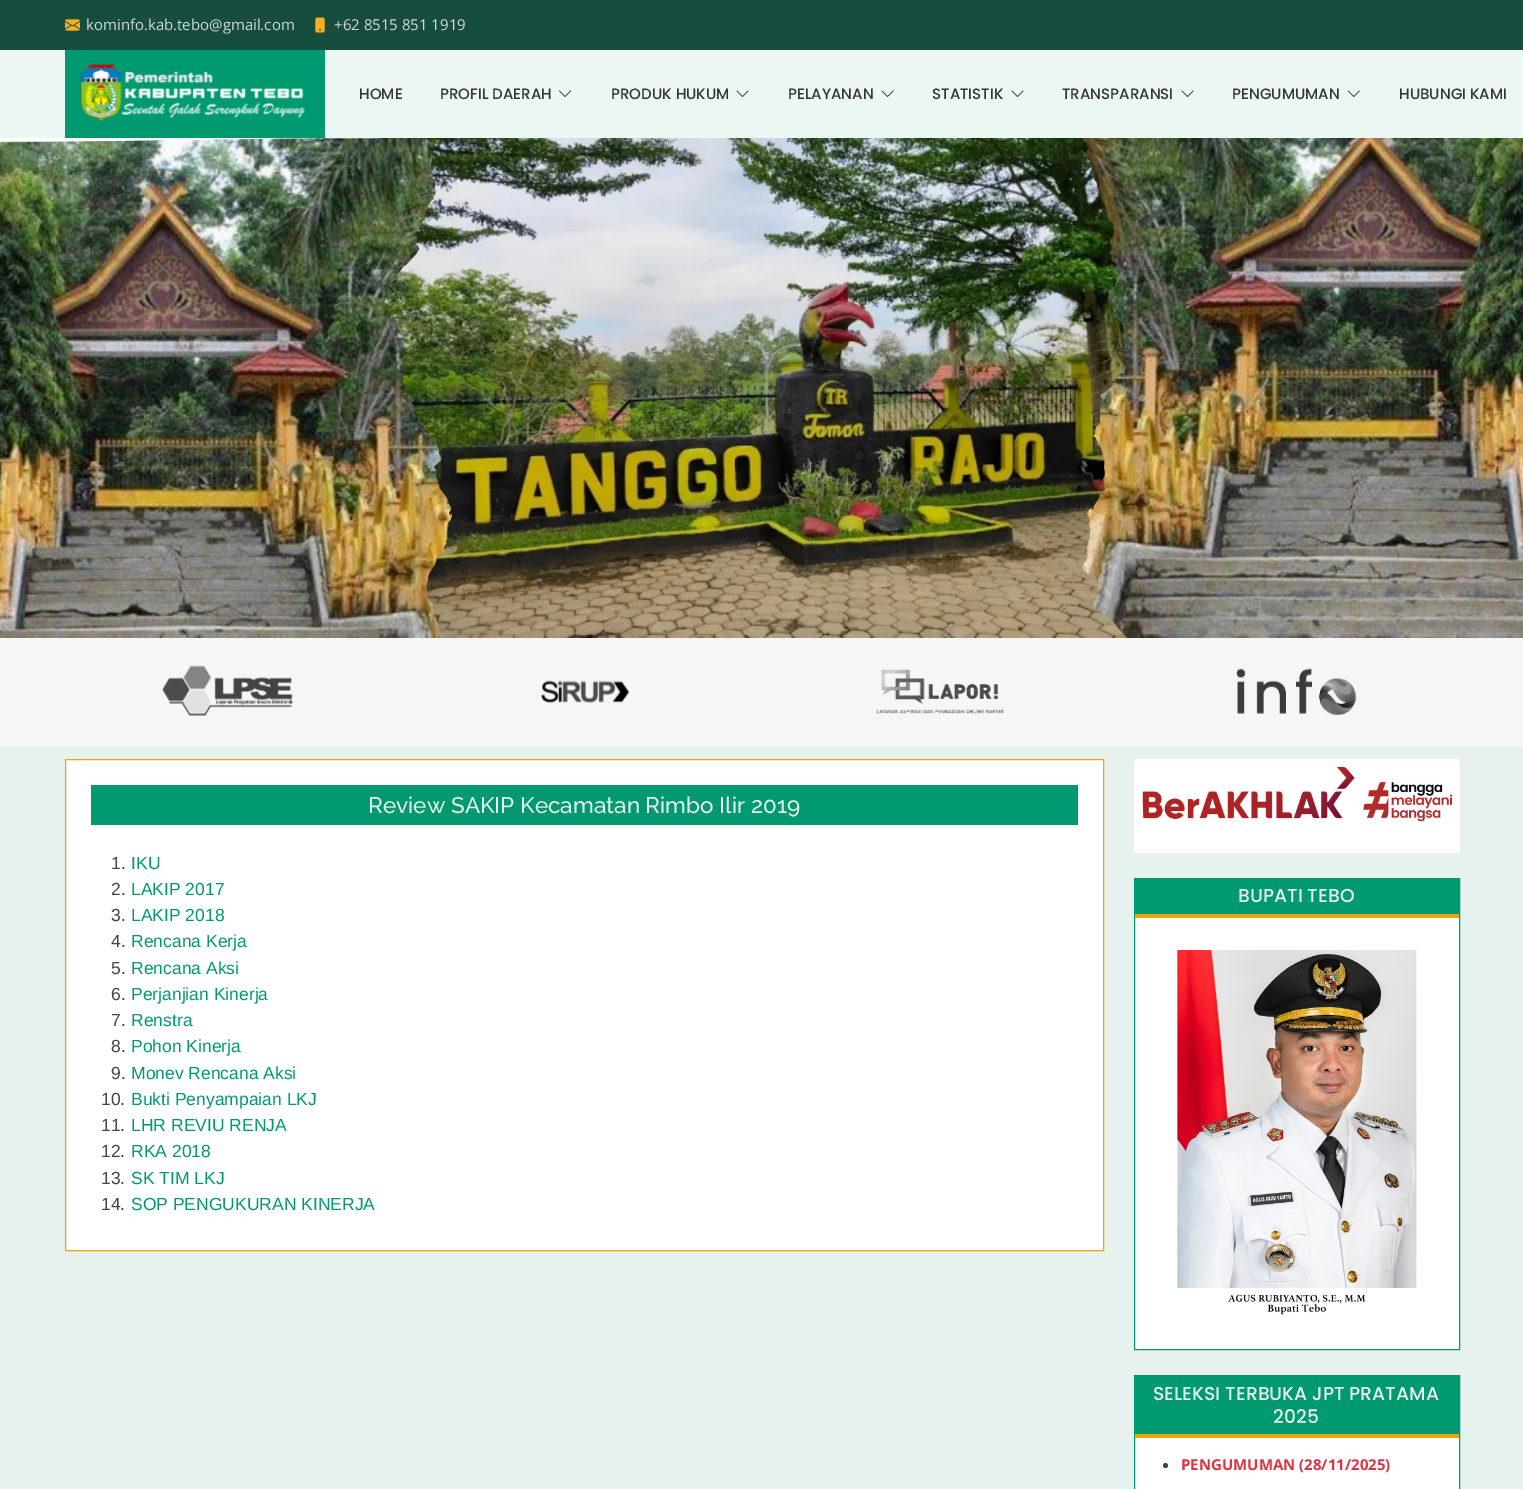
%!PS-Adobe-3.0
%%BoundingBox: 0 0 1523 1489
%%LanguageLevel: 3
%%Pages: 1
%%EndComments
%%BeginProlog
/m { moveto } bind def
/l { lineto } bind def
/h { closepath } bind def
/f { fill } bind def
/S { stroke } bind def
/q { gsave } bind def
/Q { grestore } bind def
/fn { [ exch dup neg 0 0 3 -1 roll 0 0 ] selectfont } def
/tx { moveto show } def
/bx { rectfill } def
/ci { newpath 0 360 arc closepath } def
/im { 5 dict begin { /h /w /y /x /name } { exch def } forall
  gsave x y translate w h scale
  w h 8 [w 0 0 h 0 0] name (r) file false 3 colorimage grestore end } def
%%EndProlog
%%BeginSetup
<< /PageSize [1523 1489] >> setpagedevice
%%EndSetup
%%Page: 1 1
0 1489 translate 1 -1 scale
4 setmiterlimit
0.906 0.945 0.933 setrgbcolor
0 0 1523 1489 bx
0.09 0.302 0.243 setrgbcolor
0 0 1523 50 bx
(image0.raw) 65 19 15 12 im
/OpenSans-Regular 15 fn
0.82 0.859 0.847 setrgbcolor
(kominfo.kab.tebo@gmail.com) 86 30 tx
(image1.raw) 315 17 10 16 im
(+62 8515 851 1919) 334 30 tx
0.925 0.969 0.957 setrgbcolor
0 50 1523 88 bx
0 0.6 0.439 setrgbcolor
65 50 260 88 bx
(image2.raw) 80 63 226 60 im
/Poppins-Medium 15 fn
0.212 0.204 0.227 setrgbcolor
(HOME) 359 99 tx
(PROFIL DAERAH) 440 99 tx
(image3.raw) 559 90 12 7 im
(PRODUK HUKUM) 611 99 tx
(image4.raw) 736 90 13 7 im
(PELAYANAN) 788 99 tx
(image4.raw) 881 90 13 7 im
(STATISTIK) 932 99 tx
(image4.raw) 1011 90 13 7 im
(TRANSPARANSI) 1062 99 tx
(image4.raw) 1181 90 13 7 im
(PENGUMUMAN) 1232 99 tx
(image5.raw) 1347 90 13 7 im
(HUBUNGI KAMI) 1399 99 tx
(image6.raw) 0 138 1523 500 im
0.965 0.965 0.969 setrgbcolor
0 638 1523 108 bx
(image7.raw) 162 665 131 51 im
(image8.raw) 541 680 88 23 im
(image9.raw) 876 669 128 45 im
(image10.raw) 1236 668 121 48 im
1 setgray
65.5 759.5 m 1103.5 759.5 l 1103.5 1250.5 l 65.5 1250.5 l h q f Q
0.945 0.643 0.039 setrgbcolor
S
0 0.6 0.439 setrgbcolor
91 785 987 40 bx
/Raleway-Medium 22.5 fn
0.906 0.945 0.933 setrgbcolor
(Review SAKIP Kecamatan Rimbo Ilir 2019) 368 813 tx
/LiberationSans-Regular 17.5 fn
0.267 setgray
(1.) 111 869 tx
0 0.6 0.439 setrgbcolor
(IKU) 131 869 tx
0.267 setgray
(2.) 111 895 tx
0 0.6 0.439 setrgbcolor
(LAKIP 2017) 131 895 tx
0.267 setgray
(3.) 111 921 tx
0 0.6 0.439 setrgbcolor
(LAKIP 2018) 131 921 tx
0.267 setgray
(4.) 111 947 tx
0 0.6 0.439 setrgbcolor
(Rencana Kerja) 131 947 tx
0.267 setgray
(5.) 111 974 tx
0 0.6 0.439 setrgbcolor
(Rencana Aksi) 131 974 tx
0.267 setgray
(6.) 111 1000 tx
0 0.6 0.439 setrgbcolor
(Perjanjian Kinerja) 131 1000 tx
0.267 setgray
(7.) 111 1026 tx
0 0.6 0.439 setrgbcolor
(Renstra) 131 1026 tx
0.267 setgray
(8.) 111 1052 tx
0 0.6 0.439 setrgbcolor
(Pohon Kinerja) 131 1052 tx
0.267 setgray
(9.) 111 1079 tx
0 0.6 0.439 setrgbcolor
(Monev Rencana Aksi) 131 1079 tx
0.267 setgray
(10.) 101 1105 tx
0 0.6 0.439 setrgbcolor
(Bukti Penyampaian LKJ) 131 1105 tx
0.267 setgray
(11.) 101 1131 tx
0 0.6 0.439 setrgbcolor
(LHR REVIU RENJA) 131 1131 tx
0.267 setgray
(12.) 101 1157 tx
0 0.6 0.439 setrgbcolor
(RKA 2018) 131 1157 tx
0.267 setgray
(13.) 101 1184 tx
0 0.6 0.439 setrgbcolor
(SK TIM LKJ) 131 1184 tx
0.267 setgray
(14.) 101 1210 tx
0 0.6 0.439 setrgbcolor
(SOP PENGUKURAN KINERJA) 131 1210 tx
1 setgray
1134 759 326 94 bx
(image11.raw) 1142 766 311 56 im
1135 918 324 431 bx
0 0.6 0.439 setrgbcolor
1134.5 878.5 325 471 rectstroke
1135 879 324 35 bx
0.945 0.643 0.039 setrgbcolor
1135 914 324 4 bx
/Poppins-Medium 18.75 fn
0.906 0.945 0.933 setrgbcolor
(BUPATI TEBO) 1238 902 tx
(image12.raw) 1177 950 240 365 im
1 setgray
1135 1438 324 51 bx
0 0.6 0.439 setrgbcolor
1134.5 1375.5 325 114 rectstroke
1135 1376 324 58 bx
0.945 0.643 0.039 setrgbcolor
1135 1434 324 4 bx
0.906 0.945 0.933 setrgbcolor
(SELEKSI TERBUKA JPT PRATAMA) 1153 1400 tx
(2025) 1273 1423 tx
0.267 setgray
1165.5 1465.5 2.5 ci f
/OpenSans-Bold 15 fn
0.863 0.208 0.271 setrgbcolor
(PENGUMUMAN \(28/11/2025\)) 1181 1470 tx
showpage
%%EOF
